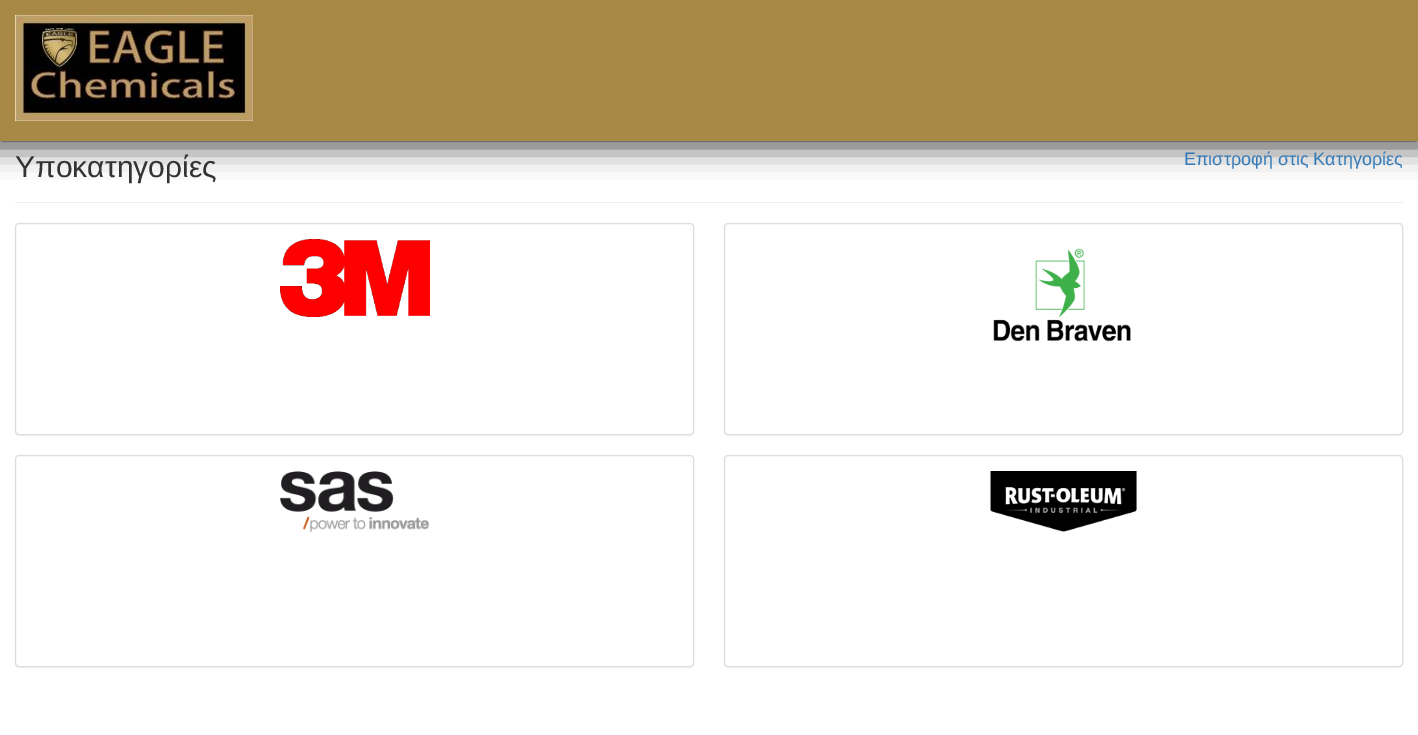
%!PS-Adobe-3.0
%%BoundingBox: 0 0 1418 735
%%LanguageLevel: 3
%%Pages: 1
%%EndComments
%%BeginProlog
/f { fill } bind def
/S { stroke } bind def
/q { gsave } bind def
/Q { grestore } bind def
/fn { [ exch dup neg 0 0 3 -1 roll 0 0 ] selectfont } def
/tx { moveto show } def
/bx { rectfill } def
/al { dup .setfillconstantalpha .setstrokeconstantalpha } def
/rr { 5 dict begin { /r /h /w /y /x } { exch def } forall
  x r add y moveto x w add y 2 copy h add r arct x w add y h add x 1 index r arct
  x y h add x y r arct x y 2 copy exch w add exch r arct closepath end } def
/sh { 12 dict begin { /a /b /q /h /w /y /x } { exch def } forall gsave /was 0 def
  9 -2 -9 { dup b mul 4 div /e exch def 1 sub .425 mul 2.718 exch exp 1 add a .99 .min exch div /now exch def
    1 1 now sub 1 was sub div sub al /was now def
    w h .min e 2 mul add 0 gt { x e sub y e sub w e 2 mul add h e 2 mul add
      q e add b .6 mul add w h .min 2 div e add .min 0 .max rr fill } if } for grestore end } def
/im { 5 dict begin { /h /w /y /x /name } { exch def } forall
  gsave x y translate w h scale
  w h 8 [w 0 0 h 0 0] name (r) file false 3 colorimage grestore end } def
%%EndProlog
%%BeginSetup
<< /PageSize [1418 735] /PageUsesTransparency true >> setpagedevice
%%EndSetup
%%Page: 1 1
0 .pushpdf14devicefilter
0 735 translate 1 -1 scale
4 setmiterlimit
1 setgray
0 0 1418 735 bx
0.2 setgray
-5 -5 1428 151 0 15 1 sh
0.655 0.533 0.267 setrgbcolor
0 0 1418 141 bx
(image0.raw) 15 15 238 106 im
0.933 setgray
15 202 1388 1 bx
/LiberationSans-Regular 30 fn
0.2 setgray
(Υποκατηγορίες) 15 177 tx
/LiberationSans-Regular 18 fn
0.2 0.478 0.718 setrgbcolor
(Επιστροφή στις Κατηγορίες) 1184 165 tx
0 setgray
15 224 679 212 4 0.5 0.05 sh
1 setgray
15.5 223.5 678 211 3.5 rr q f Q
0.867 setgray
S
(image1.raw) 280 239 150 78 im
0 setgray
724 224 679 212 4 0.5 0.05 sh
1 setgray
724.5 223.5 678 211 3.5 rr q f Q
0.867 setgray
S
(image2.raw) 993 248 138 94 im
0 setgray
15 456 679 212 4 0.5 0.05 sh
1 setgray
15.5 455.5 678 211 3.5 rr q f Q
0.867 setgray
S
(image3.raw) 280 471 150 61 im
0 setgray
724 456 679 212 4 0.5 0.05 sh
1 setgray
724.5 455.5 678 211 3.5 rr q f Q
0.867 setgray
S
(image4.raw) 990 471 147 61 im
.poppdf14devicefilter showpage
%%EOF
